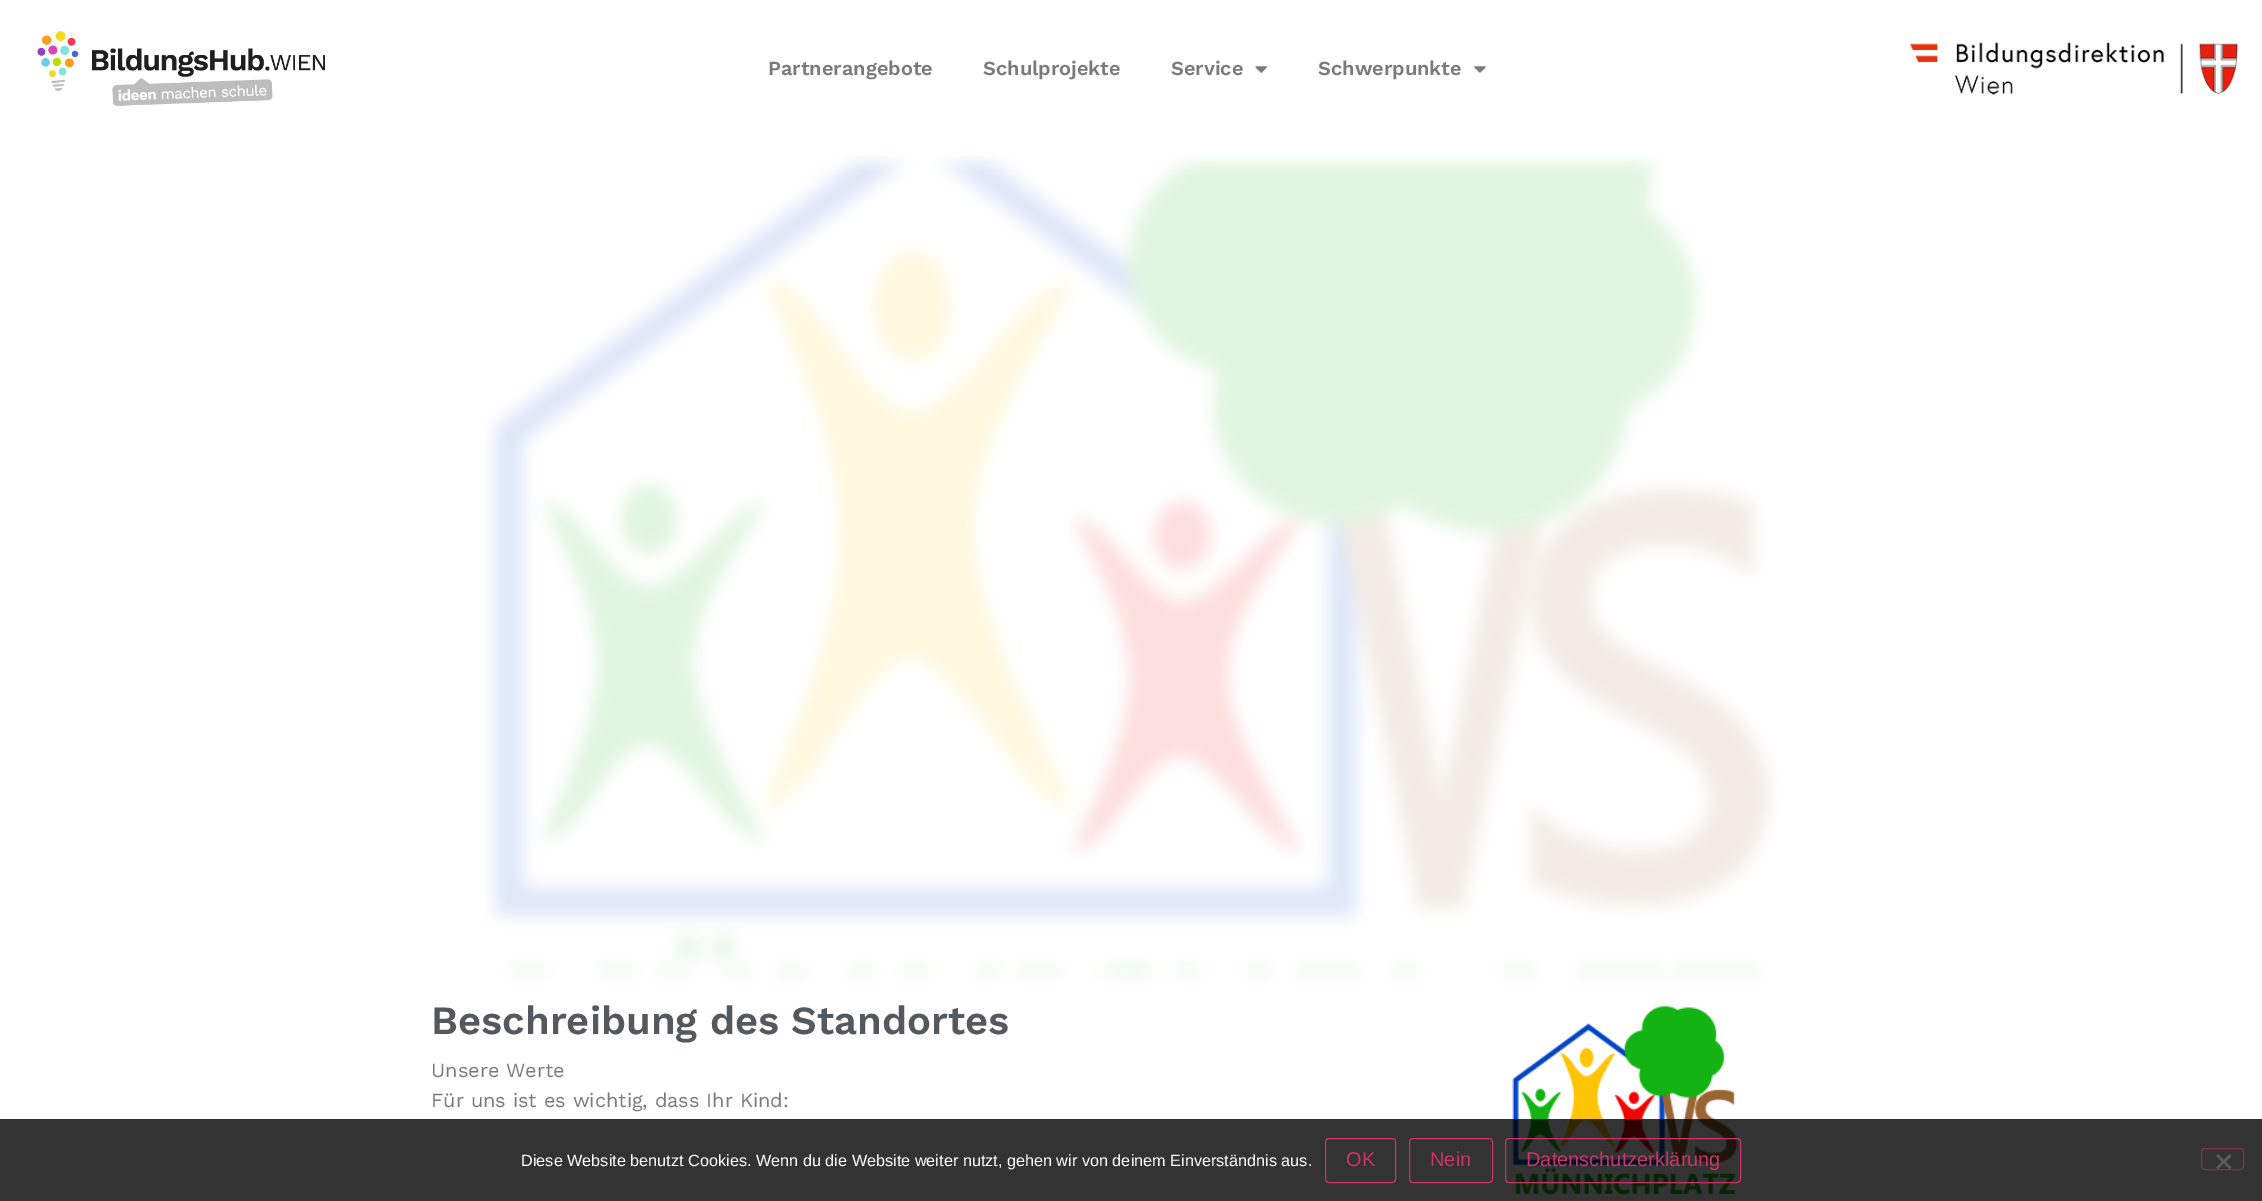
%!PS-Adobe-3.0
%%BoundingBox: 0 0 2262 1201
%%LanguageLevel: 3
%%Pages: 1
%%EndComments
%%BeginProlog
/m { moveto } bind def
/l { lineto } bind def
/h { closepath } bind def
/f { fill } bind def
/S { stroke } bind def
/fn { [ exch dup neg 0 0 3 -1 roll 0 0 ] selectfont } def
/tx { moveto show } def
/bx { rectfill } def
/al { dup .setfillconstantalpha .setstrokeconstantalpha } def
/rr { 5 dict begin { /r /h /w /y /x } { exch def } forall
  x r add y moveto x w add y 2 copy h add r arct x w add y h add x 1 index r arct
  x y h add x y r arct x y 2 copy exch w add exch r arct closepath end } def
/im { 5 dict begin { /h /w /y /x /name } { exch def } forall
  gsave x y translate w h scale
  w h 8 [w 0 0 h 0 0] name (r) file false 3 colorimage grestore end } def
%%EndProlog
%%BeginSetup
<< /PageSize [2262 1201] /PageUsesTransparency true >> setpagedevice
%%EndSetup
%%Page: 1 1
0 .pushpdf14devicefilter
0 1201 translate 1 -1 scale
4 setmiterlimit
1 setgray
0 0 2262 1201 bx
(image0.raw) 37 31 288 76 im
/WorkSans-SemiBold 20 fn
0.478 setgray
(Partnerangebote) 768 75 tx
(Schulprojekte) 983 75 tx
(Service) 1171 75 tx
(image1.raw) 1255 66 12 7 im
(Schwerpunkte) 1318 75 tx
(image2.raw) 1474 66 12 7 im
(image3.raw) 1909 42 329 53 im
(image4.raw) 485 156 1292 826 im
/WorkSans-SemiBold 40 fn
0.329 0.349 0.373 setrgbcolor
(Beschreibung des Standortes) 431 1034 tx
/WorkSans-Regular 20 fn
0.478 setgray
(Unsere Werte) 431 1077 tx
(Für uns ist es wichtig, dass Ihr Kind:) 431 1107 tx
(image5.raw) 1512 1006 226 190 im
0.8 al
0 setgray
0 1119 2262 82 bx
/LiberationSans-Regular 16.25 fn
1 al
1 setgray
(Diese Website benutzt Cookies. Wenn du die Website weiter nutzt, gehen wir von deinem Einverständnis aus.) 521 1166 tx
0.8 0.2 0.4 setrgbcolor
1325.5 1138.5 70 44 3.5 rr S
/LiberationSans-Regular 20 fn
(OK) 1346 1166 tx
1409.5 1138.5 83 44 3.5 rr S
(Nein) 1430 1166 tx
1505.5 1138.5 235 44 3.5 rr S
(Datenschutzerklärung) 1526 1166 tx
0.502 0.2 0.302 setrgbcolor
2201.5 1148.5 42 21 3.5 rr S
0.353 setgray
2229.5 1154 m 2231.5 1156 l 2218 1169 l 2216 1167.5 l h f
2216 1156 m 2218 1154 l 2231.5 1167.5 l 2229.5 1169 l h f
.poppdf14devicefilter showpage
%%EOF
